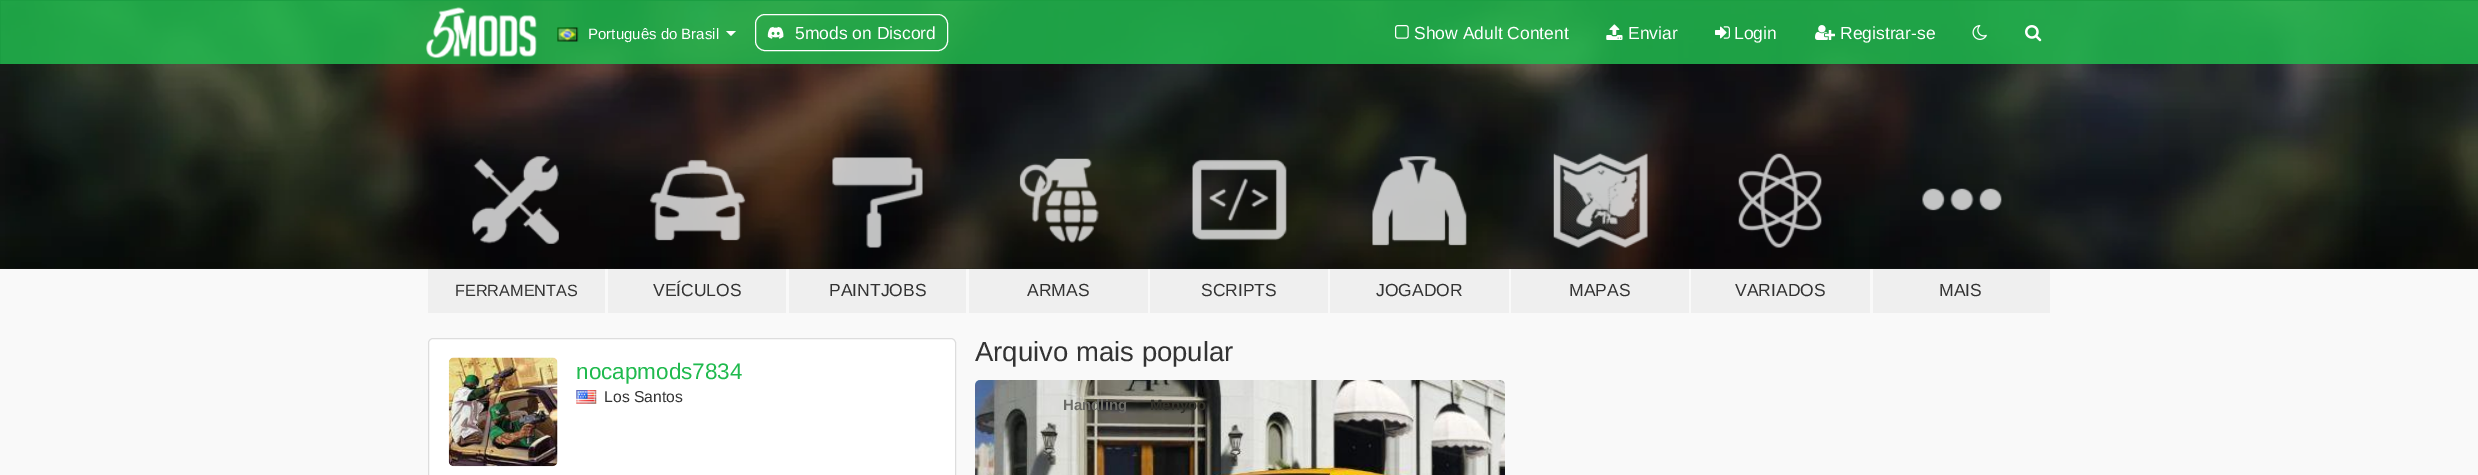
%!PS-Adobe-3.0
%%BoundingBox: 0 0 2478 475
%%LanguageLevel: 3
%%Pages: 1
%%EndComments
%%BeginProlog
/m { moveto } bind def
/l { lineto } bind def
/h { closepath } bind def
/f { fill } bind def
/S { stroke } bind def
/q { gsave } bind def
/Q { grestore } bind def
/fn { [ exch dup neg 0 0 3 -1 roll 0 0 ] selectfont } def
/tx { moveto show } def
/bx { rectfill } def
/al { dup .setfillconstantalpha .setstrokeconstantalpha } def
/rr { 5 dict begin { /r /h /w /y /x } { exch def } forall
  x r add y moveto x w add y 2 copy h add r arct x w add y h add x 1 index r arct
  x y h add x y r arct x y 2 copy exch w add exch r arct closepath end } def
/im { 5 dict begin { /h /w /y /x /name } { exch def } forall
  gsave x y translate w h scale
  w h 8 [w 0 0 h 0 0] name (r) file false 3 colorimage grestore end } def
%%EndProlog
%%BeginSetup
<< /PageSize [2478 475] /PageUsesTransparency true >> setpagedevice
%%EndSetup
%%Page: 1 1
0 .pushpdf14devicefilter
0 475 translate 1 -1 scale
4 setmiterlimit
0.976 setgray
0 0 2478 475 bx
(image9.raw) 0 1 2478 268 im
0.85 al
0.125 0.729 0.306 setrgbcolor
1 1 2477 63 bx
1 al
0.106 0.62 0.259 setrgbcolor
0 0 2478 1 bx
0 0 1 64 bx
(image0.raw) 426 7 111 51 im
(image1.raw) 557 27 22 15 im
/LiberationSans-Regular 15 fn
1 setgray
(Português do Brasil) 588 39 tx
726 31 m 736 31 l 731 36 l h f
755.5 14.5 192 36 9.5 rr S
(image2.raw) 767 26 17 13 im
/LiberationSans-Regular 17.5 fn
(5mods on Discord) 795 39 tx
(image3.raw) 1395 25 14 14 im
(Show Adult Content) 1414 39 tx
(image4.raw) 1606 24 17 16 im
(Enviar) 1628 39 tx
(image5.raw) 1715 26 15 13 im
(Login) 1734 39 tx
(image6.raw) 1815 25 20 15 im
(Registrar-se) 1840 39 tx
(image7.raw) 1972 25 15 15 im
(image8.raw) 2025 25 17 17 im
(image10.raw) 472 156 87 88 im
0.937 setgray
428 269 177 44 bx
/LiberationSans-Regular 16.25 fn
0.2 setgray
(FERRAMENTAS) 455 296 tx
(image11.raw) 649 159 97 82 im
0.937 setgray
608 269 178 44 bx
/LiberationSans-Regular 17.5 fn
0.2 setgray
(VEÍCULOS) 653 296 tx
(image12.raw) 832 157 91 91 im
0.937 setgray
789 269 177 44 bx
0.2 setgray
(PAINTJOBS) 829 296 tx
(image13.raw) 1019 158 80 85 im
0.937 setgray
969 269 179 44 bx
0.2 setgray
(ARMAS) 1027 296 tx
(image14.raw) 1192 159 95 82 im
0.937 setgray
1150 269 178 44 bx
0.2 setgray
(SCRIPTS) 1201 296 tx
(image15.raw) 1372 156 95 90 im
0.937 setgray
1330 269 179 44 bx
0.2 setgray
(JOGADOR) 1376 296 tx
(image16.raw) 1553 153 95 95 im
0.937 setgray
1511 269 178 44 bx
0.2 setgray
(MAPAS) 1569 296 tx
(image17.raw) 1738 153 84 95 im
0.937 setgray
1691 269 179 44 bx
0.2 setgray
(VARIADOS) 1735 296 tx
(image18.raw) 1922 188 80 23 im
0.937 setgray
1873 269 177 44 bx
0.2 setgray
(MAIS) 1939 296 tx
1 setgray
428.5 338.5 527 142 4.5 rr q f Q
0.867 setgray
S
(image19.raw) 448 357 110 110 im
/LiberationSans-Regular 22.5 fn
0.125 0.729 0.306 setrgbcolor
(nocapmods7834) 576 379 tx
(image20.raw) 576 390 21 14 im
/LiberationSans-Regular 15.75 fn
0.2 setgray
(Los Santos) 604 402 tx
/LiberationSans-Regular 27.5 fn
(Arquivo mais popular) 975 361 tx
(image21.raw) 975 380 530 95 im
/LiberationSans-Bold 15 fn
0.424 0.424 0.404 setrgbcolor
(Handling) 1063 410 tx
0.196 0.192 0.165 setrgbcolor
(Menyoo) 1150 410 tx
.poppdf14devicefilter showpage
%%EOF
